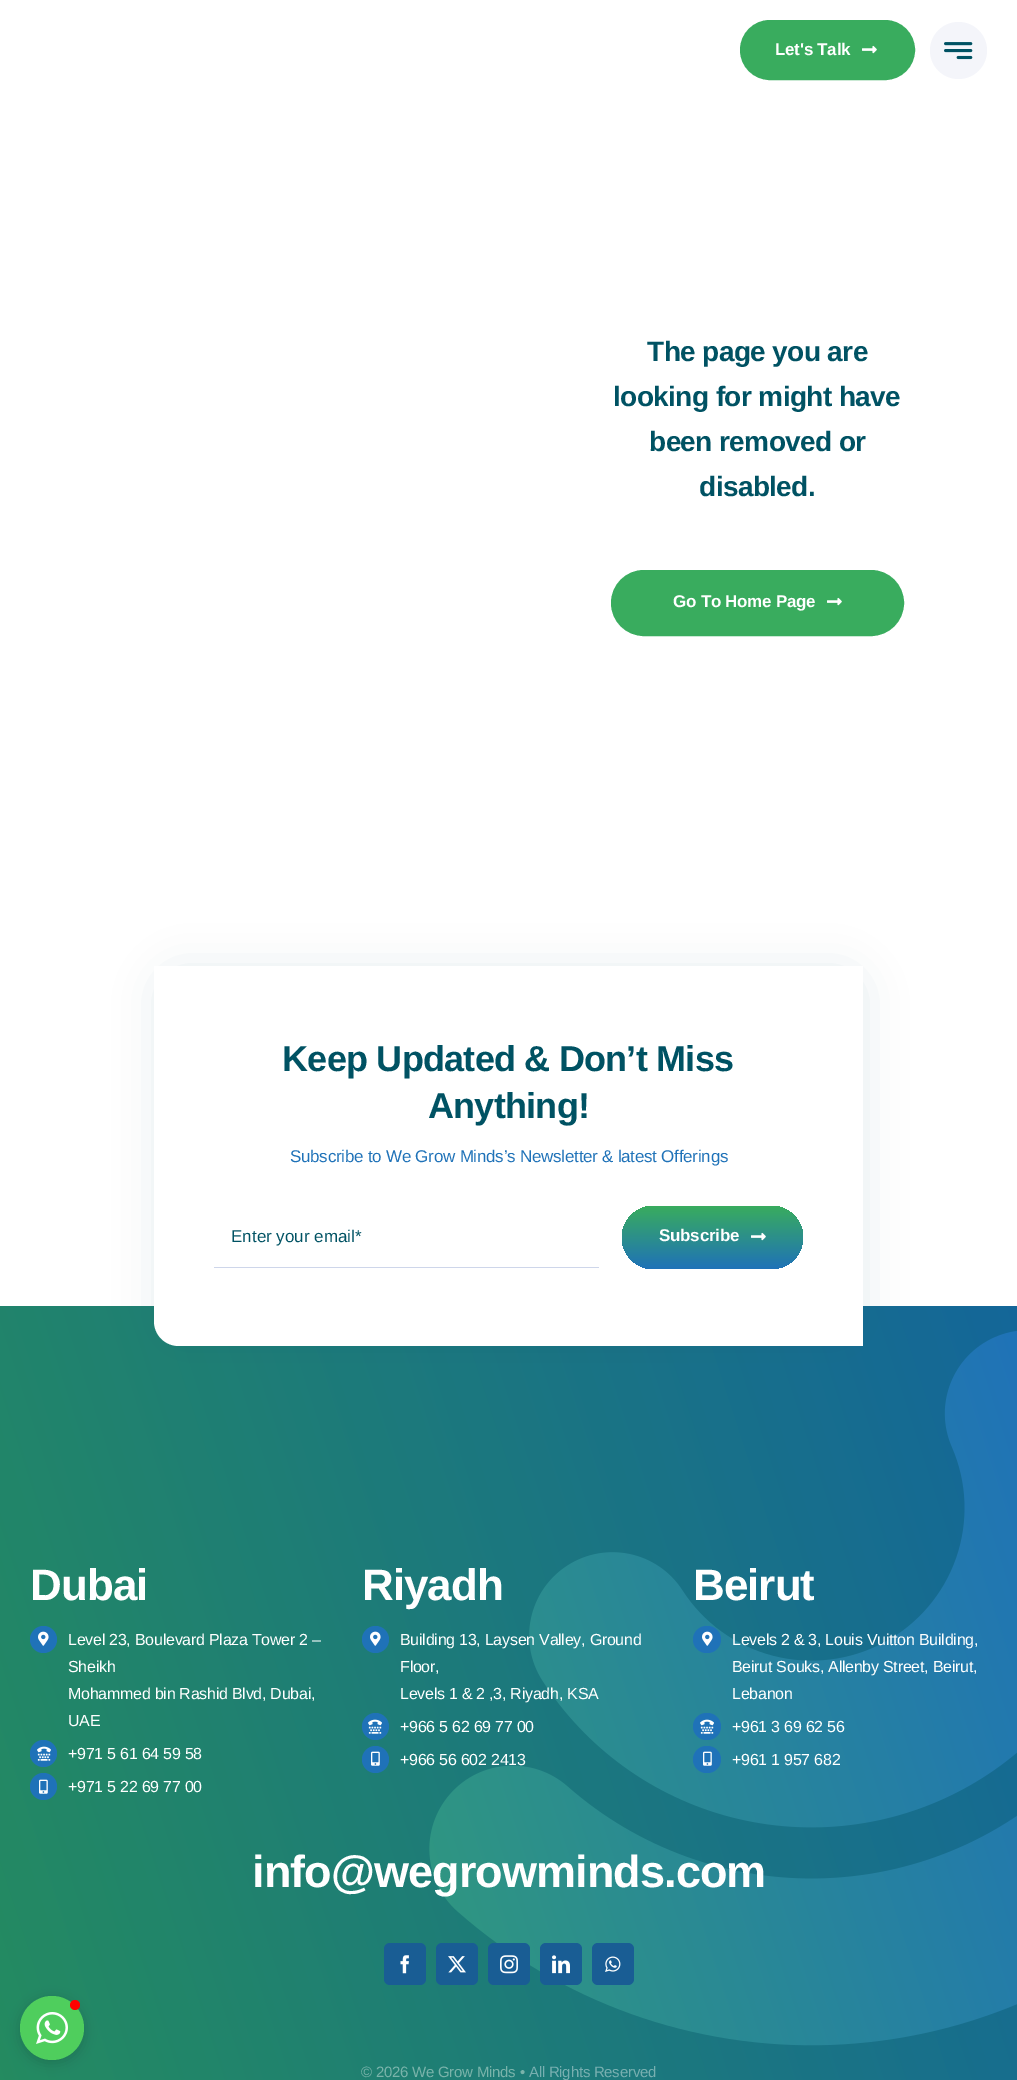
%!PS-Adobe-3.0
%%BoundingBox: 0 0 1017 2080
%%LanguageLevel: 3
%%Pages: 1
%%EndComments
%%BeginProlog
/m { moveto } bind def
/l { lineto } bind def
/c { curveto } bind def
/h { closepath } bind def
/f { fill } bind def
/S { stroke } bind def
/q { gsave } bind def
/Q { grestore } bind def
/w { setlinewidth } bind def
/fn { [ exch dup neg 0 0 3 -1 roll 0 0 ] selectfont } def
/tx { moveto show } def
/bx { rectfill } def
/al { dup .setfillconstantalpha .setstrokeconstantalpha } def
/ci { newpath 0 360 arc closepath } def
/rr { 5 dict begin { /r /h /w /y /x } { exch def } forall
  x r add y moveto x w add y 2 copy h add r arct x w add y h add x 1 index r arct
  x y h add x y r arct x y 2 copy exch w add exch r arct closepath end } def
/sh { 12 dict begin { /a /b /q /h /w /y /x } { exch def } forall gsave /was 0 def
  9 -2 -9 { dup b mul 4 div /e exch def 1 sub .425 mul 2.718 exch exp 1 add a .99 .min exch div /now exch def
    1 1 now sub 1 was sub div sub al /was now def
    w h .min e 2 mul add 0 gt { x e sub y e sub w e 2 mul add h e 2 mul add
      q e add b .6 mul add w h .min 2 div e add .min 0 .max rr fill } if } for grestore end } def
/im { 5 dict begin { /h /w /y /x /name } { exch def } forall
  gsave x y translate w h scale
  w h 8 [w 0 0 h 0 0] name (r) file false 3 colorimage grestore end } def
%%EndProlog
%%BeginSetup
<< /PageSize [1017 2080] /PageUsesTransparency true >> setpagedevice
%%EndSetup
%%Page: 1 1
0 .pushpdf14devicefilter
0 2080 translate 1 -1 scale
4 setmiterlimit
1 setgray
0 0 1017 2080 bx
0.224 0.675 0.369 setrgbcolor
741 21 173 58 29 rr q f Q
2 w
S
/LiberationSans-Bold 17 fn
1 setgray
775 55 m -0.25 0 (Let's Talk) ashow
(image0.raw) 862 45 15 9 im
0.957 0.961 0.98 setrgbcolor
958.5 50.5 28.5 ci f
(image1.raw) 944 42 29 18 im
/LiberationSans-Bold 28 fn
0 0.322 0.388 setrgbcolor
647 361 m -0.6 0 (The page you are) ashow
613 406 m -0.6 0 (looking for might have) ashow
649 451 m -0.6 0 (been removed or) ashow
699 496 m -0.6 0 (disabled.) ashow
0.224 0.675 0.369 setrgbcolor
612 571 291 64 32 rr q f Q
S
/LiberationSans-Bold 17 fn
1 setgray
673 607 m -0.25 0 (Go To Home Page) ashow
(image0.raw) 827 597 15 9 im
q 0 1306 m 1017 1306 l 1017 2080 l 0 2080 l h clip newpath
<< /ShadingType 2 /ColorSpace /DeviceRGB /Coords [-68 1890 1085 1515] /Extend [true true] /Function << /FunctionType 2 /Domain [0 1] /C0 [0.224 0.675 0.369] /C1 [0.122 0.447 0.722] /N 1 >> >> shfill Q
(image3.raw) 0 1306 1017 774 im
0 0.318 0.38 setrgbcolor
156 968 709 380 25 20 0.1 sh
1 setgray
154 966 m 863 966 l 863 1346 l 179 1346 l 165 1346 154 1335 154 1321 c h f
/LiberationSans-Bold 36 fn
0 0.322 0.388 setrgbcolor
282 1071 m -0.75 0 (Keep Updated & Don’t Miss) ashow
428 1118 m -0.75 0 (Anything!) ashow
/LiberationSans-Regular 17 fn
0.122 0.447 0.722 setrgbcolor
290 1162 m -0.25 0 (Subscribe to We Grow Minds’s Newsletter & latest Offerings) ashow
0.808 0.839 0.918 setrgbcolor
214 1267 385 1 bx
0 0.322 0.388 setrgbcolor
(Enter your email*) 231 1242 tx
q 622 1206 181 63 31.5 rr clip newpath
<< /ShadingType 2 /ColorSpace /DeviceRGB /Coords [713 1206 713 1269] /Extend [true true] /Function << /FunctionType 2 /Domain [0 1] /C0 [0.224 0.675 0.369] /C1 [0.122 0.447 0.722] /N 1 >> >> shfill Q
/LiberationSans-Bold 17 fn
1 setgray
659 1241 m -0.25 0 (Subscribe) ashow
(image2.raw) 751 1232 15 9 im
/LiberationSans-Bold 44 fn
30 1600 m -1 0 (Dubai) ashow
0.122 0.447 0.722 setrgbcolor
43.5 1639.5 13.5 ci f
(image4.raw) 38 1631 11 15 im
/LiberationSans-Regular 16 fn
1 setgray
68 1645 m -0.25 0 (Level 23, Boulevard Plaza Tower 2 –) ashow
68 1672 m -0.25 0 (Sheikh) ashow
68 1699 m -0.25 0 (Mohammed bin Rashid Blvd, Dubai,) ashow
68 1726 m -0.25 0 (UAE) ashow
0.122 0.447 0.722 setrgbcolor
43.5 1753.5 13.5 ci f
(image5.raw) 37 1746 14 15 im
1 setgray
68 1759 m -0.25 0 (+971 5 61 64 59 58) ashow
0.122 0.447 0.722 setrgbcolor
43.5 1786.5 13.5 ci f
(image6.raw) 39 1779 9 15 im
1 setgray
68 1792 m -0.25 0 (+971 5 22 69 77 00) ashow
/LiberationSans-Bold 44 fn
362 1600 m -1 0 (Riyadh) ashow
0.122 0.447 0.722 setrgbcolor
375.5 1639.5 13.5 ci f
(image4.raw) 370 1631 11 15 im
/LiberationSans-Regular 16 fn
1 setgray
400 1645 m -0.25 0 (Building 13, Laysen Valley, Ground) ashow
400 1672 m -0.25 0 (Floor,) ashow
400 1699 m -0.25 0 (Levels 1 & 2 ,3, Riyadh, KSA) ashow
0.122 0.447 0.722 setrgbcolor
375.5 1726.5 13.5 ci f
(image5.raw) 368 1719 14 15 im
1 setgray
400 1732 m -0.25 0 (+966 5 62 69 77 00) ashow
0.122 0.447 0.722 setrgbcolor
375.5 1759.5 13.5 ci f
(image6.raw) 371 1751 9 15 im
1 setgray
400 1765 m -0.25 0 (+966 56 602 2413) ashow
/LiberationSans-Bold 44 fn
693 1600 m -1 0 (Beirut) ashow
0.122 0.447 0.722 setrgbcolor
693 1626 28 27 13.5 rr f
(image4.raw) 702 1631 11 15 im
/LiberationSans-Regular 16 fn
1 setgray
732 1645 m -0.25 0 (Levels 2 & 3, Louis Vuitton Building,) ashow
732 1672 m -0.25 0 (Beirut Souks, Allenby Street, Beirut,) ashow
732 1699 m -0.25 0 (Lebanon) ashow
0.122 0.447 0.722 setrgbcolor
693 1713 28 27 13.5 rr f
(image5.raw) 700 1719 14 15 im
1 setgray
732 1732 m -0.25 0 (+961 3 69 62 56) ashow
0.122 0.447 0.722 setrgbcolor
693 1746 28 27 13.5 rr f
(image6.raw) 703 1751 9 15 im
1 setgray
732 1765 m -0.25 0 (+961 1 957 682) ashow
/LiberationSans-Bold 45 fn
252 1887 m -0.9 0 (info@wegrowminds.com) ashow
0.098 0.365 0.58 setrgbcolor
384 1943 42 42 6 rr f
(image7.raw) 400 1955 9 19 im
436 1943 42 42 6 rr f
(image8.raw) 448 1956 18 17 im
488 1943 42 42 6 rr f
(image9.raw) 500 1955 18 19 im
540 1943 42 42 6 rr f
(image10.raw) 552 1955 18 19 im
592 1943 42 42 6 rr f
(image11.raw) 605 1956 16 16 im
/LiberationSans-Regular 15 fn
0.475 0.702 0.667 setrgbcolor
361 2077 m -0.25 0 (©) ashow
376 2077 m -0.25 0 (2026) ashow
412 2077 m -0.25 0 (We Grow Minds) ashow
520 2077 m -0.25 0 (•) ashow
0.467 0.686 0.69 setrgbcolor
529 2077 m -0.25 0 (All Rights Reserved) ashow
0 setgray
20 1999 64 64 32 6 0.15 sh
0.31 0.808 0.365 setrgbcolor
52 2028 32 ci f
1 0 0 setrgbcolor
75 2005 5 ci f
(image12.raw) 36 2012 32 32 im
.poppdf14devicefilter showpage
%%EOF
